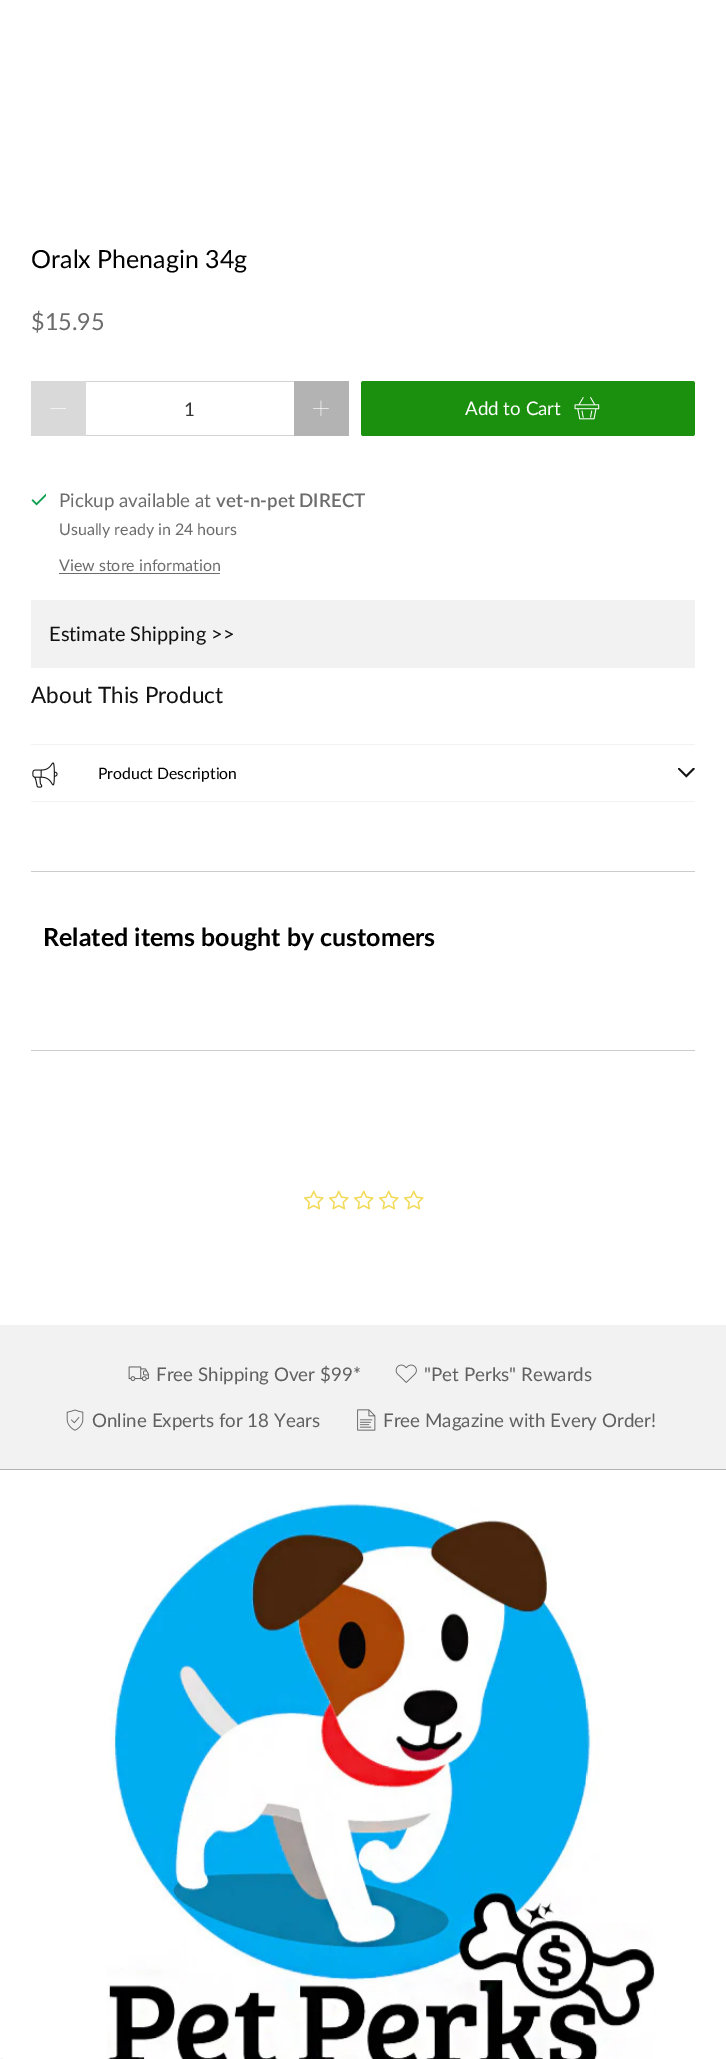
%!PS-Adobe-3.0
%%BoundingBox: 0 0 726 2059
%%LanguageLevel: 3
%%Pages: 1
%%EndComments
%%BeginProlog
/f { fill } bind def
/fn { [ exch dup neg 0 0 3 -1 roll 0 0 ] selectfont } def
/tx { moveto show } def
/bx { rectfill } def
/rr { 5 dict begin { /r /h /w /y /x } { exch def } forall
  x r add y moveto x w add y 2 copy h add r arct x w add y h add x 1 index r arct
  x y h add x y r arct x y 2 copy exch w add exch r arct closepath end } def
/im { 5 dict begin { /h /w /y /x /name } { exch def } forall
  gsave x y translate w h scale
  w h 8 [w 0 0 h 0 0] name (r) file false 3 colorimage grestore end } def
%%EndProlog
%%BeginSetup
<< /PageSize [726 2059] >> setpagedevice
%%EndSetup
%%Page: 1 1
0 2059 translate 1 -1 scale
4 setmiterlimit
1 setgray
0 0 726 2059 bx
/Lato-Regular 25 fn
0 setgray
(Oralx Phenagin 34g) 31 268 tx
/Lato-Regular 23.5 fn
0.424 setgray
($15.95) 31 330 tx
0.851 setgray
31 381 55 55 bx
(image0.raw) 50 408 16 1 im
0.827 setgray
86 381 208 1 bx
86 435 208 1 bx
/Lato-Regular 18.75 fn
0.212 setgray
(1) 184 416 tx
0.702 setgray
294 381 55 55 bx
(image1.raw) 313 400 16 16 im
0.106 0.565 0.059 setrgbcolor
361 381 334 55 2.5 rr f
1 setgray
(Add to Cart) 465 415 tx
(image2.raw) 574 397 26 23 im
(image3.raw) 31 493 15 13 im
0.424 setgray
(Pickup available at) 59 507 tx
/Lato-SemiBold 18.75 fn
(vet-n-pet DIRECT) 216 507 tx
/Lato-Regular 16 fn
(Usually ready in 24 hours) 59 535 tx
(View store information) 59 571 tx
59 573 161 1 bx
0.949 setgray
31 600 664 68 bx
/Lato-Regular 20 fn
0.071 setgray
(Estimate Shipping >>) 49 641 tx
/Lato-Regular 22.5 fn
(About This Product) 31 703 tx
0.949 setgray
31 744 664 1 bx
31 801 664 1 bx
(image4.raw) 32 762 26 26 im
/Lato-Regular 15.75 fn
0 setgray
(Product Description) 98 779 tx
(image5.raw) 678 768 17 10 im
0.8 setgray
31 871 664 1 bx
/Lato-Bold 25 fn
0 setgray
(Related items bought by customers) 43 946 tx
0.8 setgray
31 1050 664 1 bx
(image6.raw) 303 1190 21 20 im
(image6.raw) 328 1190 21 20 im
(image6.raw) 353 1190 21 20 im
(image6.raw) 378 1190 21 20 im
(image6.raw) 403 1190 21 20 im
0.949 setgray
0 1325 726 144 bx
(image7.raw) 128 1366 21 15 im
/Lato-Regular 18.75 fn
0.376 setgray
(Free Shipping Over $99*) 156 1381 tx
(image8.raw) 395 1364 22 19 im
("Pet Perks" Rewards) 424 1381 tx
(image9.raw) 66 1409 18 22 im
(Online Experts for 18 Years) 92 1427 tx
(image10.raw) 357 1409 19 22 im
(Free Magazine with Every Order!) 383 1427 tx
0.702 setgray
0 1469 726 1 bx
(image11.raw) 107 1503 548 556 im
0.961 setgray
0 2058 3 1 bx
showpage
%%EOF
